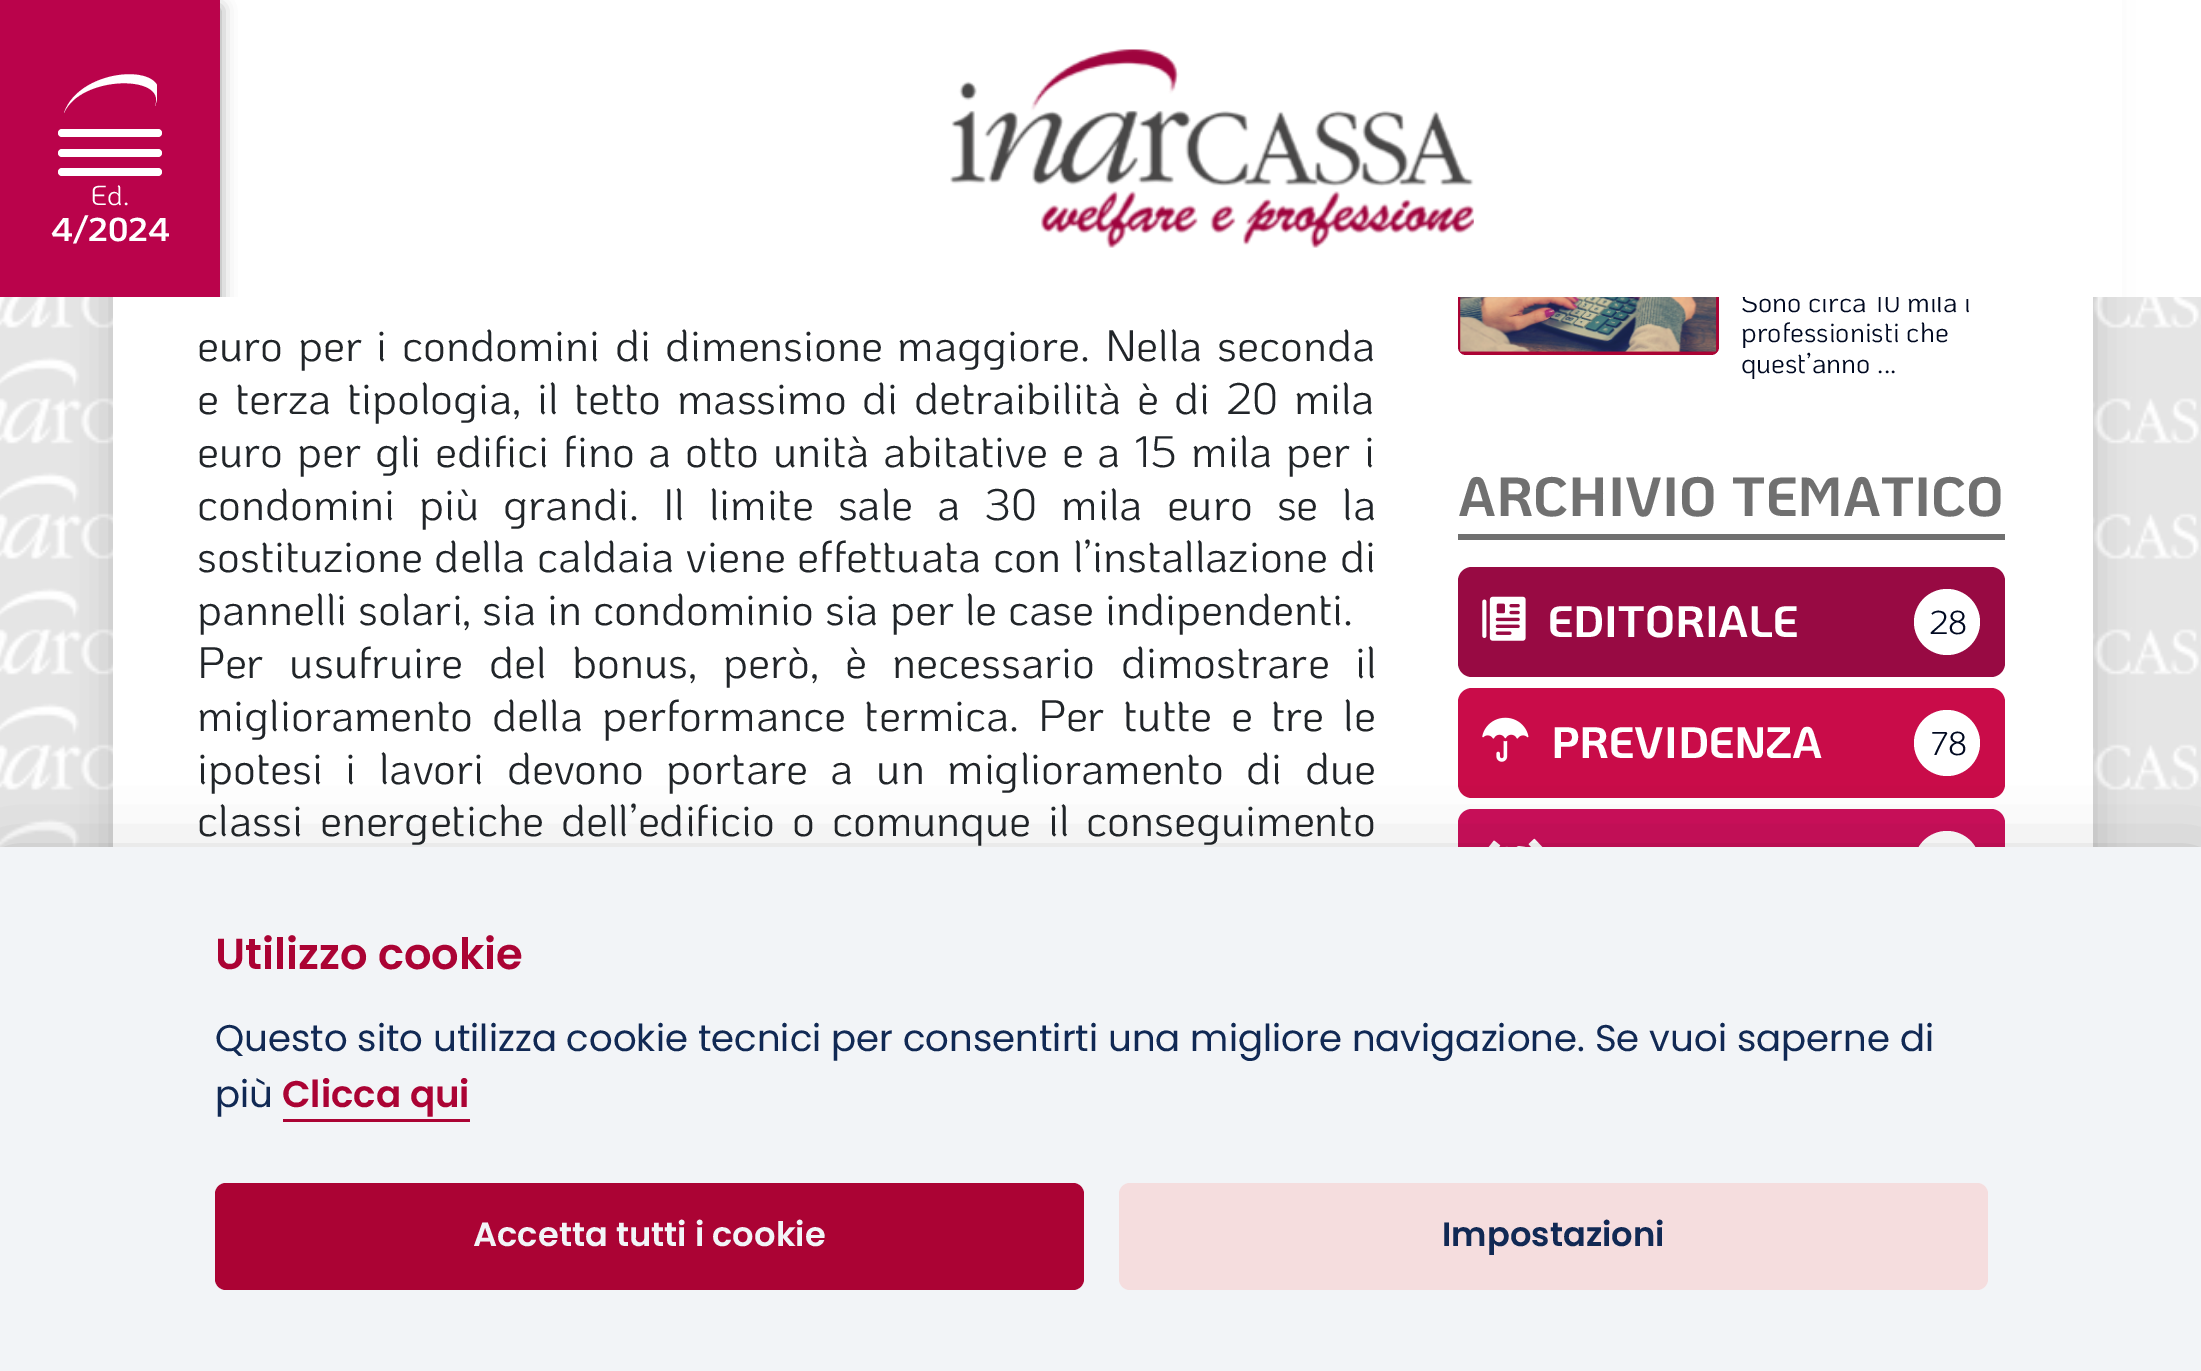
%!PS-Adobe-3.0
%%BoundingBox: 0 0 2201 1371
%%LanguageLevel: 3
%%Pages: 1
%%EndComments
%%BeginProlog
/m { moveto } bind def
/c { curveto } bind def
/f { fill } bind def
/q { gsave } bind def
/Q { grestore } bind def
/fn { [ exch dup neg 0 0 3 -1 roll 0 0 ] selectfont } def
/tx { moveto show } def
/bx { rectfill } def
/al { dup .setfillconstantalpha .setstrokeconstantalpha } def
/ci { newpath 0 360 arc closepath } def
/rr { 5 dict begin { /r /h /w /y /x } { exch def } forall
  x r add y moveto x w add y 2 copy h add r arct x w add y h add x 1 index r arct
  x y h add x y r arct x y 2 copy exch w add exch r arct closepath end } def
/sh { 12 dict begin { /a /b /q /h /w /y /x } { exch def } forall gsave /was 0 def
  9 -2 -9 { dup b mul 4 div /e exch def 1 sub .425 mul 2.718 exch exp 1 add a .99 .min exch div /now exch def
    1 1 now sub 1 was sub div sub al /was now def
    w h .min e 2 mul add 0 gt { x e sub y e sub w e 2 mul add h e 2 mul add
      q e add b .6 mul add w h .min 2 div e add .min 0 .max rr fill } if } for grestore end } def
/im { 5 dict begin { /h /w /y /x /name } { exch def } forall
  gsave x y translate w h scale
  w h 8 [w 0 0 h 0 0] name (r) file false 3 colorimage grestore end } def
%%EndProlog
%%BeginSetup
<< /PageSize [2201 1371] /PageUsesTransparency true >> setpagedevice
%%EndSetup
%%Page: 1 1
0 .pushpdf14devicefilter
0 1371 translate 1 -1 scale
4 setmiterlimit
1 setgray
0 0 2201 1371 bx
(image0.raw) 0 297 2201 550 im
0 setgray
113 -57 1980 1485 0 19 0.16 sh
1 setgray
113 297 1980 550 bx
0.671 0.012 0.204 setrgbcolor
1458 118 261 237 8 rr f
/KoHo-Regular 27.5 fn
0 0.035 0.129 setrgbcolor
(Sono circa 10 mila i) 1741 312 tx
1 setgray
220 0 1902 297 bx
q
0 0 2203 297 rectclip
0 setgray
0 8 220 297 0 8 0.4 sh
Q
0.729 0.012 0.294 setrgbcolor
0 0 220 297 bx
q
63 74 94 39 rectclip
1 setgray
155 106 m 168 74 80 75 64 113 c 80 66 173 62 157 100 c f
Q
1 setgray
58 149 104 8 4 rr f
58 129 104 8 4 rr f
58 168 104 8 4 rr f
(Ed.) 91 205 tx
/KoHo-Bold 33 fn
(4/2024) 51 241 tx
(image1.raw) 950 49 524 199 im
/KoHo-Regular 44 fn
0.129 0.145 0.161 setrgbcolor
197 361 m 3.75 0 32 (euro per i condomini di dimensione maggiore. Nella seconda) widthshow
197 414 m 4.75 0 32 (e terza tipologia, il tetto massimo di detraibilità è di 20 mila) widthshow
197 467 m 2.9 0 32 (euro per gli edifici fino a otto unità abitative e a 15 mila per i) widthshow
197 520 m 13.1 0 32 (condomini più grandi. Il limite sale a 30 mila euro se la) widthshow
197 572 m 0.75 0 32 (sostituzione della caldaia viene effettuata con l’installazione di) widthshow
(pannelli solari, sia in condominio sia per le case indipendenti.) 197 625 tx
197 678 m 15 0 32 (Per usufruire del bonus, però, è necessario dimostrare il) widthshow
197 731 m 7.75 0 32 (miglioramento della performance termica. Per tutte e tre le) widthshow
197 784 m 11.75 0 32 (ipotesi i lavori devono portare a un miglioramento di due) widthshow
197 836 m 6.25 0 32 (classi energetiche dell’edificio o comunque il conseguimento) widthshow
(image2.raw) 1460 297 257 55 im
/KoHo-Regular 27.5 fn
0 0.035 0.129 setrgbcolor
(professionisti che) 1741 342 tx
(quest’anno ...) 1741 373 tx
0.439 setgray
1458 534 547 6 bx
/KoHo-Bold 55 fn
(ARCHIVIO TEMATICO) 1458 516 tx
0.596 0.039 0.263 setrgbcolor
1458 567 547 110 14 rr f
(image3.raw) 1482 596 44 45 im
/KoHo-Bold 44 fn
1 setgray
(EDITORIALE) 1548 637 tx
1947 622 33 ci f
/KoHo-Regular 33 fn
0 0.035 0.129 setrgbcolor
(28) 1929 634 tx
0.788 0.047 0.286 setrgbcolor
1458 688 547 110 14 rr f
(image4.raw) 1482 717 47 45 im
/KoHo-Bold 44 fn
1 setgray
(PREVIDENZA) 1551 758 tx
1947 743 33 ci f
/KoHo-Regular 33 fn
0 0.035 0.129 setrgbcolor
(78) 1930 755 tx
0.792 0.059 0.353 setrgbcolor
1458 809 547 110 14 rr f
(image5.raw) 1488 838 55 9 im
1 setgray
1947 864 33 ci f
0.008 0.008 0.012 setrgbcolor
0 872 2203 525 0 38.5 0.28 sh
0.949 0.957 0.969 setrgbcolor
0 847 2201 524 bx
/Poppins-SemiBold 43.25 fn
0.671 0.012 0.204 setrgbcolor
(Utilizzo cookie) 215 969 tx
/Poppins-Regular 37.1 fn
0.067 0.161 0.329 setrgbcolor
(Questo sito utilizza cookie tecnici per consentirti una migliore navigazione. Se vuoi saperne di) 215 1051 tx
(più) 215 1107 tx
/Poppins-SemiBold 37.1 fn
0.671 0.012 0.204 setrgbcolor
(Clicca qui) 282 1107 tx
283 1119 187 3 bx
215 1183 869 107 11 rr f
/Poppins-SemiBold 33.75 fn
0.949 0.957 0.969 setrgbcolor
(Accetta tutti i cookie) 473 1246 tx
0.961 0.867 0.871 setrgbcolor
1119 1183 869 107 11 rr f
0.067 0.161 0.329 setrgbcolor
(Impostazioni) 1442 1246 tx
.poppdf14devicefilter showpage
%%EOF
